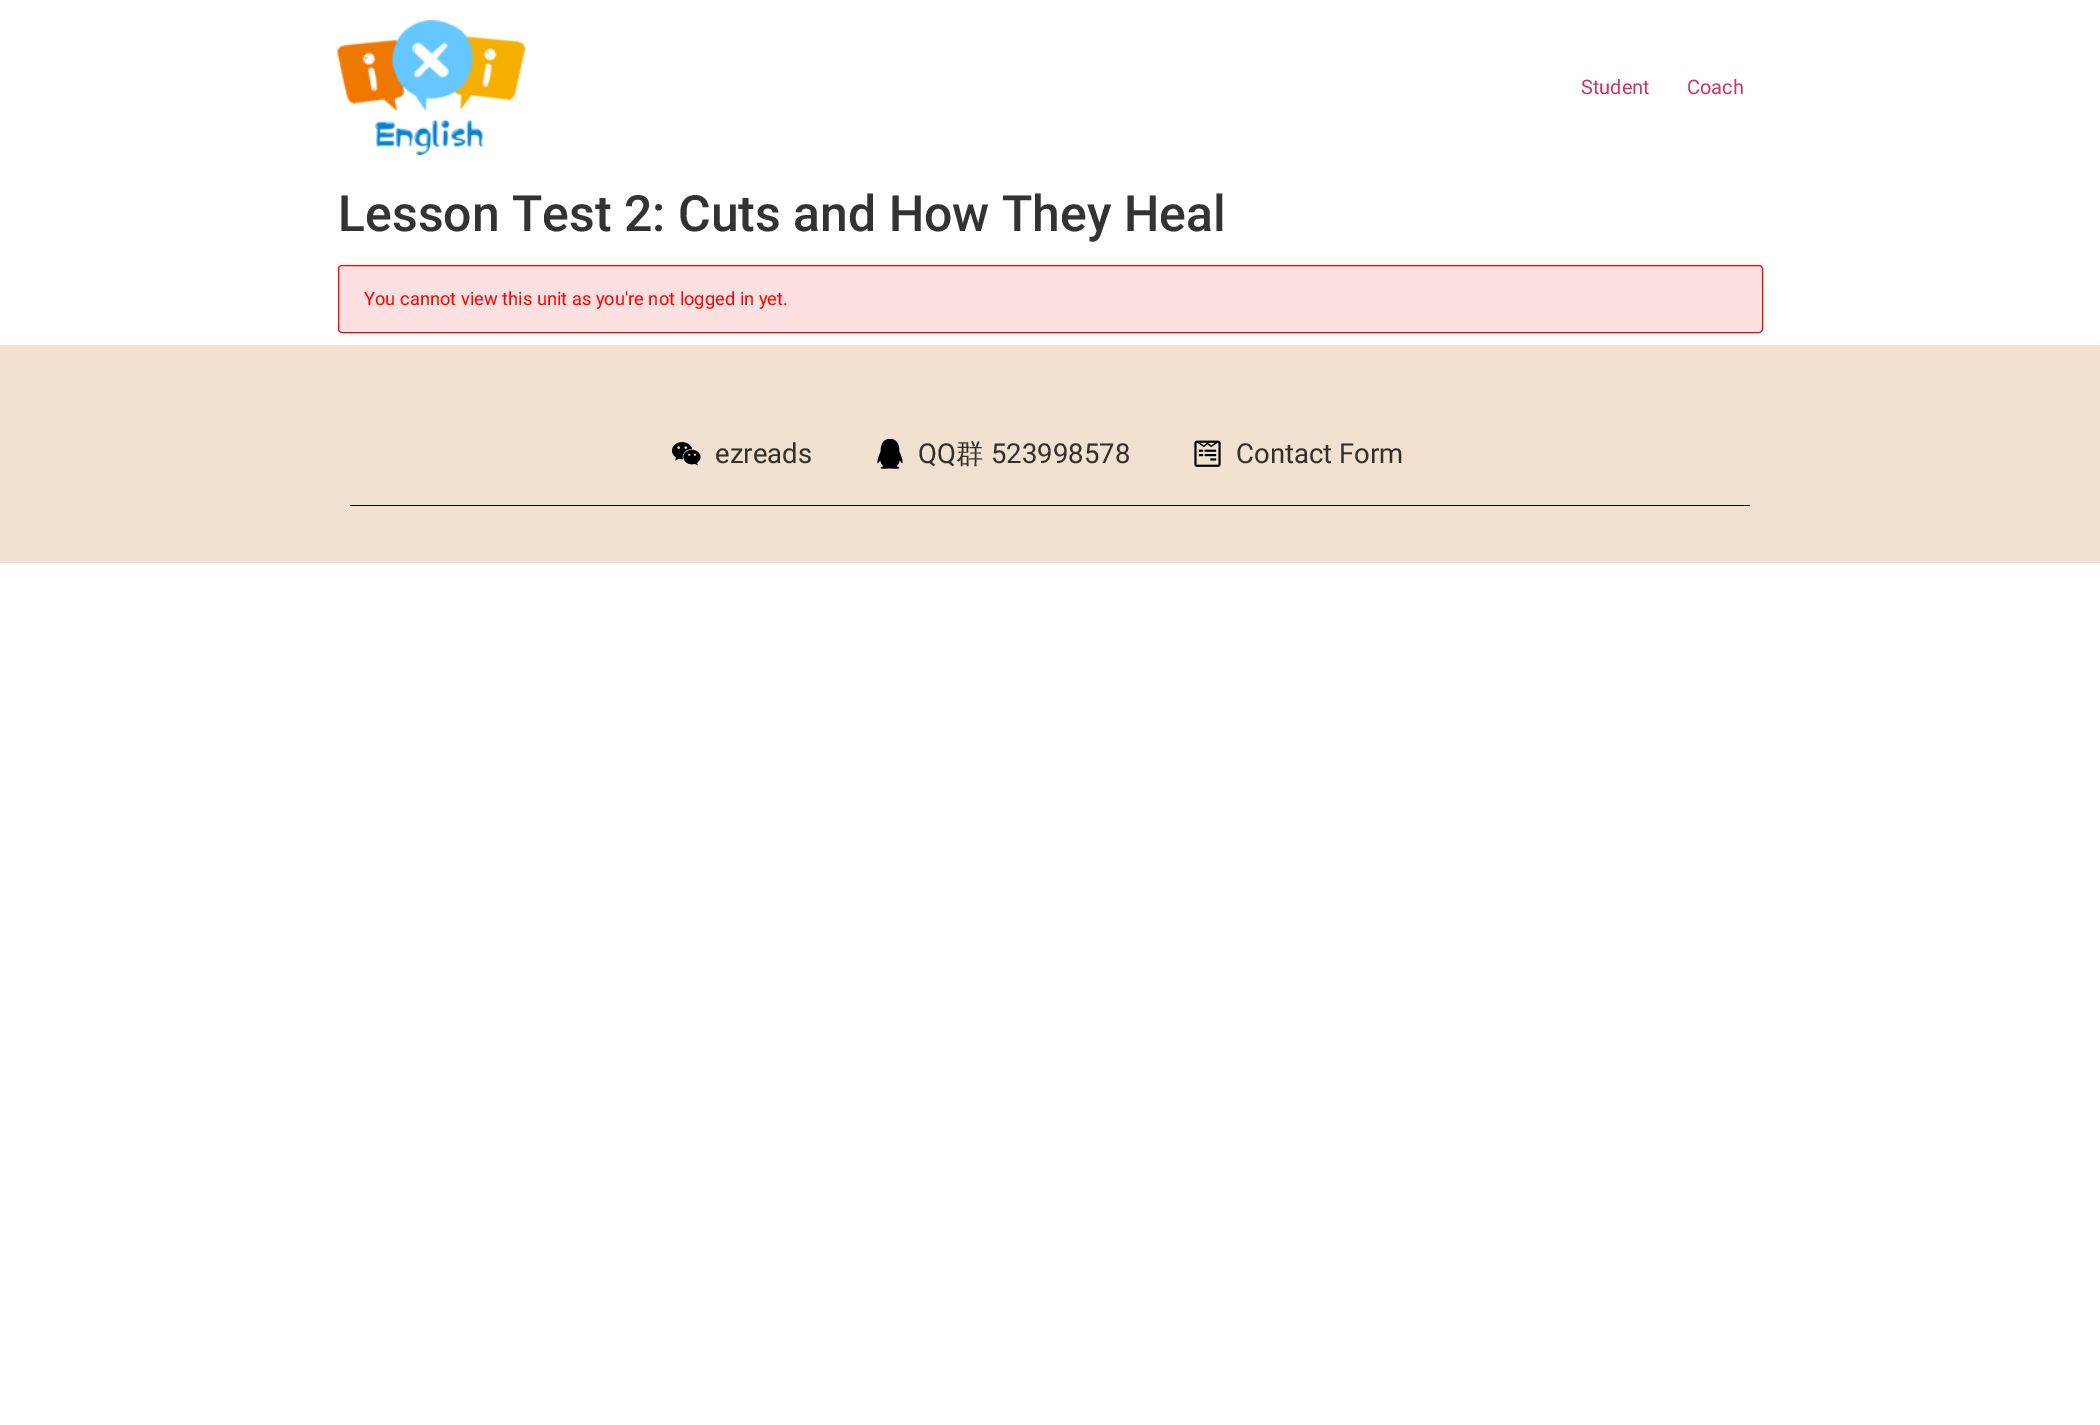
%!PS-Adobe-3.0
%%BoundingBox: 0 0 2100 1425
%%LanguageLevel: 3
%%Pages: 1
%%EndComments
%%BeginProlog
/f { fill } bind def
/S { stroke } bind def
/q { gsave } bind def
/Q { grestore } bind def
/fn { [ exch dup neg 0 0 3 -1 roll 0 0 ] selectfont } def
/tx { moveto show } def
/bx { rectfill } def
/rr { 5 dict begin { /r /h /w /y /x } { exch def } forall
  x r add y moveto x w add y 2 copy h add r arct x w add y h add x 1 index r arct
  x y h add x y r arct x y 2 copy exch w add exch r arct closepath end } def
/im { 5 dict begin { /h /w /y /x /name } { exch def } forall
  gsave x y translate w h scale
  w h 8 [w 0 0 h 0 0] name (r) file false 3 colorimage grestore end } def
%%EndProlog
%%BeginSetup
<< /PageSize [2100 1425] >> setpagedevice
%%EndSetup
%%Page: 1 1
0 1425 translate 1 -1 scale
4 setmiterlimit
1 setgray
0 0 2100 1425 bx
(image0.raw) 337 20 188 135 im
/Roboto-Regular 20 fn
0.8 0.2 0.4 setrgbcolor
(Student) 1581 94 tx
(Coach) 1687 94 tx
/Roboto-Medium 50 fn
0.2 setgray
(Lesson Test 2: Cuts and How They Heal) 338 231 tx
0.992 0.878 0.878 setrgbcolor
338.5 265.5 1424 67 3.5 rr q f Q
1 0 0 setrgbcolor
S
/Roboto-Regular 18.3 fn
(You cannot view this unit as you're not logged in yet.) 364 305 tx
0.945 0.882 0.816 setrgbcolor
0 345 2100 218 bx
(image1.raw) 671 442 30 24 im
/Roboto-Regular 27.5 fn
0.2 0.184 0.173 setrgbcolor
(ezreads) 715 463 tx
(image2.raw) 877 439 26 30 im
(QQ) 918 463 tx
/WenQuanYiZenHei-Medium 27.5 fn
(群) 956 463 tx
/Roboto-Regular 27.5 fn
(523998578) 991 463 tx
(image3.raw) 1194 440 27 27 im
(Contact Form) 1236 463 tx
0 setgray
350 505 1400 1 bx
showpage
%%EOF
